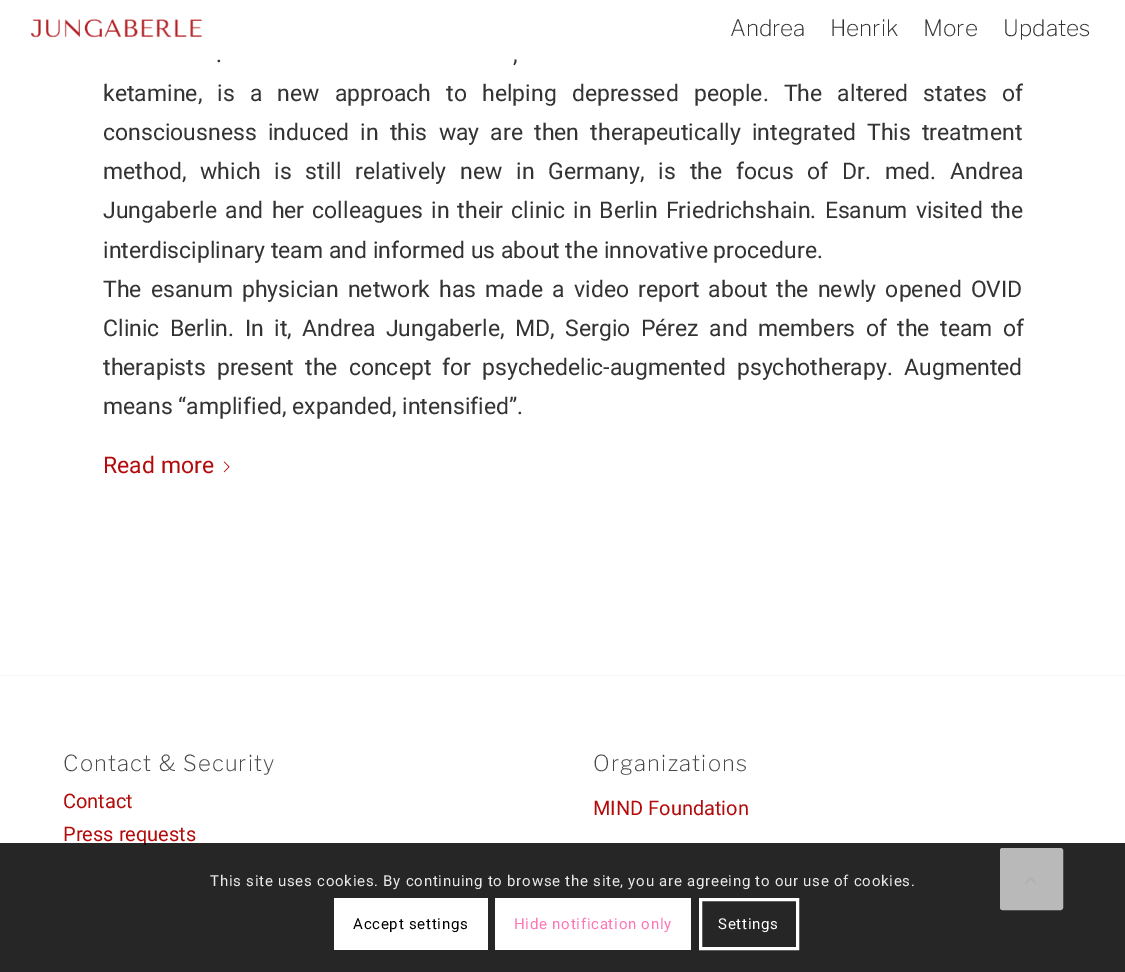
%!PS-Adobe-3.0
%%BoundingBox: 0 0 1125 972
%%LanguageLevel: 3
%%Pages: 1
%%EndComments
%%BeginProlog
/m { moveto } bind def
/f { fill } bind def
/S { stroke } bind def
/q { gsave } bind def
/Q { grestore } bind def
/w { setlinewidth } bind def
/fn { [ exch dup neg 0 0 3 -1 roll 0 0 ] selectfont } def
/tx { moveto show } def
/bx { rectfill } def
/al { dup .setfillconstantalpha .setstrokeconstantalpha } def
/rr { 5 dict begin { /r /h /w /y /x } { exch def } forall
  x r add y moveto x w add y 2 copy h add r arct x w add y h add x 1 index r arct
  x y h add x y r arct x y 2 copy exch w add exch r arct closepath end } def
/im { 5 dict begin { /h /w /y /x /name } { exch def } forall
  gsave x y translate w h scale
  w h 8 [w 0 0 h 0 0] name (r) file false 3 colorimage grestore end } def
%%EndProlog
%%BeginSetup
<< /PageSize [1125 972] /PageUsesTransparency true >> setpagedevice
%%EndSetup
%%Page: 1 1
0 .pushpdf14devicefilter
0 972 translate 1 -1 scale
4 setmiterlimit
1 setgray
0 0 1125 972 bx
(image0.raw) 30 19 173 19 im
/LibreFranklin-ExtraLight 22.5 fn
0.2 setgray
(Andrea) 730 36 tx
(Henrik) 830 36 tx
(More) 923 36 tx
(Updates) 1003 36 tx
/Roboto-Regular 23 fn
216 62 m 6 0 32 (.) widthshow
513 62 m 6 0 32 (,) widthshow
103 101 m 9.4 0 32 (ketamine, is a new approach to helping depressed people. The altered states of) widthshow
103 140 m 5.5 0 32 (consciousness induced in this way are then therapeutically integrated This treatment) widthshow
103 179 m 8.1 0 32 (method, which is still relatively new in Germany, is the focus of Dr. med. Andrea) widthshow
103 218 m 2.4 0 32 (Jungaberle and her colleagues in their clinic in Berlin Friedrichshain. Esanum visited the) widthshow
(interdisciplinary team and informed us about the innovative procedure.) 103 258 tx
103 297 m 3.4 0 32 (The esanum physician network has made a video report about the newly opened OVID) widthshow
103 336 m 4.75 0 32 (Clinic Berlin. In it, Andrea Jungaberle, MD, Sergio Pérez and members of the team of) widthshow
103 375 m 5.5 0 32 (therapists present the concept for psychedelic-augmented psychotherapy. Augmented) widthshow
(means “amplified, expanded, intensified”.) 103 414 tx
0.702 0.043 0.043 setrgbcolor
(Read more) 103 473 tx
(image1.raw) 223 461 7 12 im
0.973 setgray
0 675 1125 1 bx
/LibreFranklin-ExtraLight 22 fn
0.282 setgray
63 771 m 1.25 0 (Contact & Security) ashow
/Roboto-Regular 20 fn
0.702 0.043 0.043 setrgbcolor
(Contact) 63 808 tx
(Press requests) 63 841 tx
/LibreFranklin-ExtraLight 22 fn
0.282 setgray
593 771 m 1.25 0 (Organizations) ashow
/Roboto-Regular 20 fn
0.702 0.043 0.043 setrgbcolor
(MIND Foundation) 593 815 tx
0.85 al
0 setgray
0 843 1125 129 bx
/Roboto-Regular 15 fn
1 al
0.914 setgray
210 886 m 0.75 0 (This site uses cookies. By continuing to browse the site, you are agreeing to our use of cookies.) ashow
1 setgray
334 898 154 52 bx
0 setgray
353 929 m 0.75 0 (Accept settings) ashow
1 setgray
495 898 196 52 bx
1 0.459 0.71 setrgbcolor
514 929 m 0.75 0 (Hide notification only) ashow
1 setgray
3 w
700.5 899.5 97 49 rectstroke
718 929 m 0.75 0 (Settings) ashow
0.725 setgray
1000.5 848.5 62 61 2 rr q f Q
1 w
S
(image2.raw) 1025 877 11 7 im
.poppdf14devicefilter showpage
%%EOF
